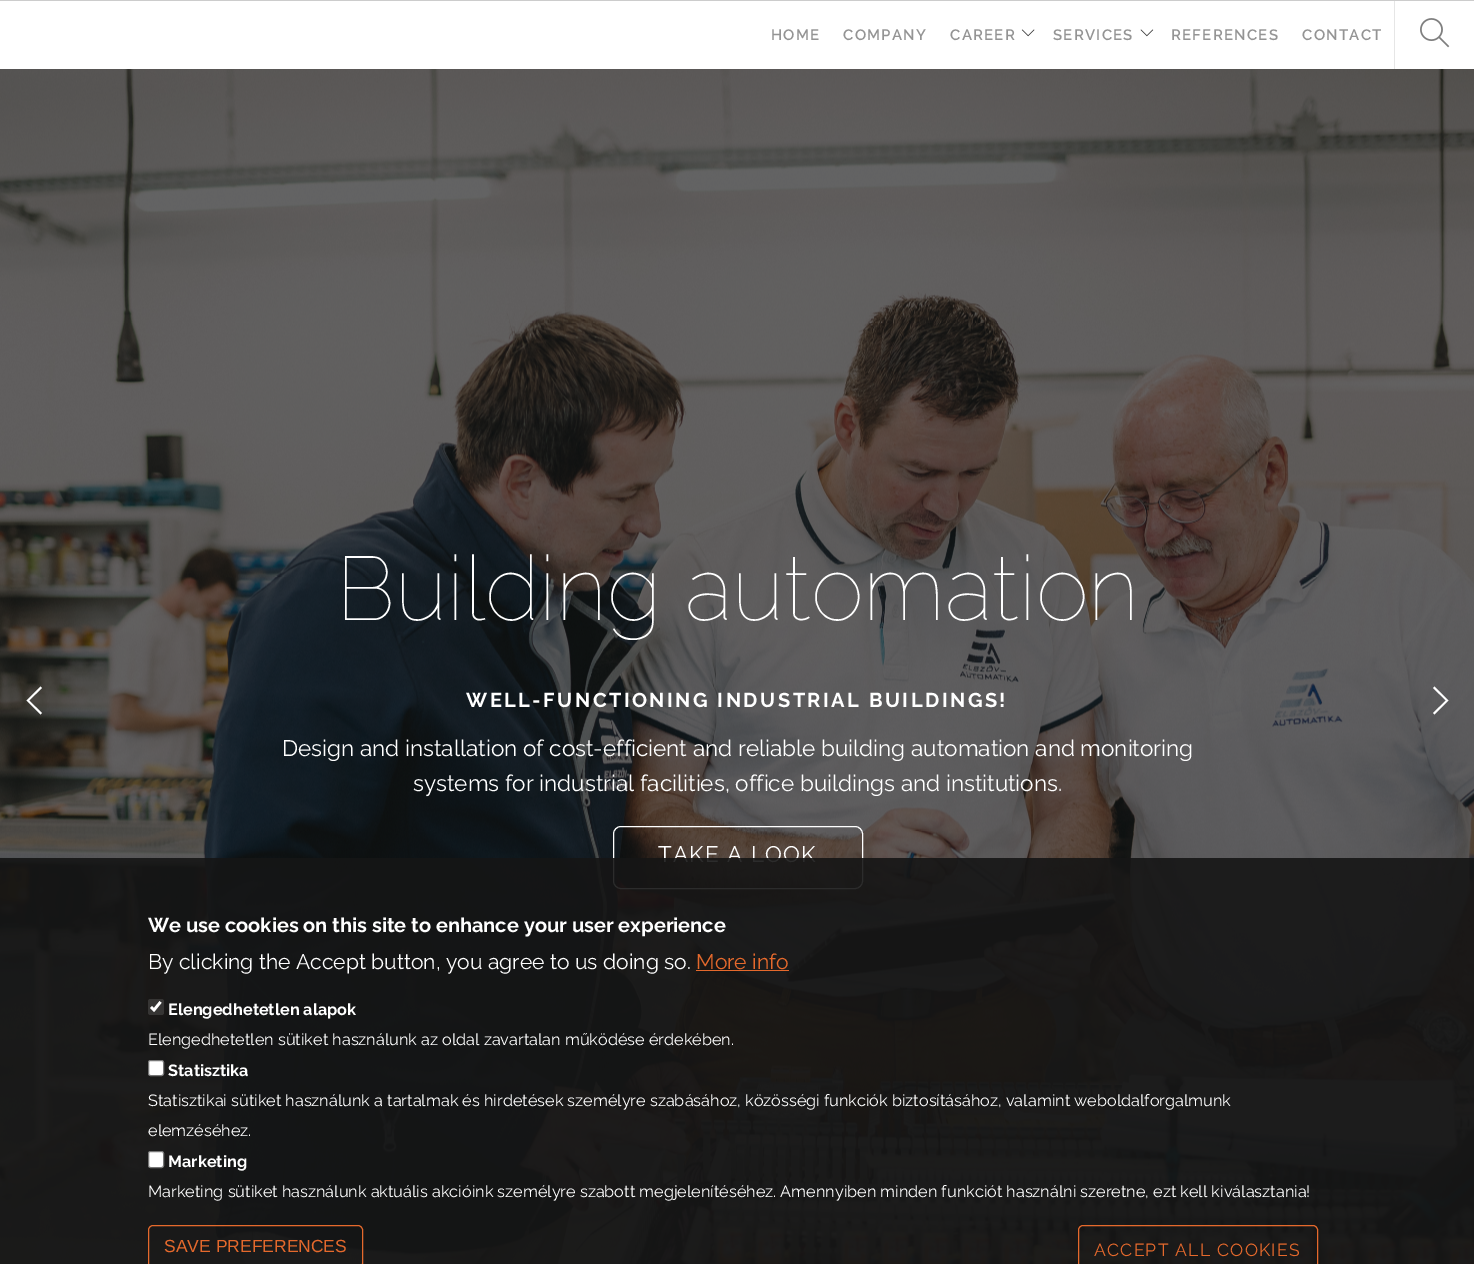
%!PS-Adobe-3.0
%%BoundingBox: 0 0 1474 1264
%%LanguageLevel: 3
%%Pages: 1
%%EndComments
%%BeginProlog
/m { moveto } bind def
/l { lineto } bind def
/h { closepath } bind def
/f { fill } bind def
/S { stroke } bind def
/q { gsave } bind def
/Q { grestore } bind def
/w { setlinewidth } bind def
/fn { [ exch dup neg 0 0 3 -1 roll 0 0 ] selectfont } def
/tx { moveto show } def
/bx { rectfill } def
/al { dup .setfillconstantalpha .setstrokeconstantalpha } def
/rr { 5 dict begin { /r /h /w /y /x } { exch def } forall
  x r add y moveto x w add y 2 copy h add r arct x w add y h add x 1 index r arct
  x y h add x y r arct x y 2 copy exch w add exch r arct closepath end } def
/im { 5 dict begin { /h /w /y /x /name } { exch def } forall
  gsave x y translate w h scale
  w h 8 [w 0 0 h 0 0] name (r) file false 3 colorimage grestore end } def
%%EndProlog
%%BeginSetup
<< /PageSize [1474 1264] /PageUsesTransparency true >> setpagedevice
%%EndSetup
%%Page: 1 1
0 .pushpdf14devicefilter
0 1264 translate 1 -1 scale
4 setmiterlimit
1 setgray
0 0 1474 1264 bx
0.902 setgray
1394 0 1 69 bx
0.8 setgray
0 0 1474 1 bx
/Raleway-SemiBold 15 fn
0.58 setgray
771 40 m 1.25 0 (HOME) ashow
843 40 m 1.25 0 (COMPANY) ashow
950 40 m 1.25 0 (CAREER) ashow
(image0.raw) 1021 29 14 8 im
1053 40 m 1.25 0 (SERVICES) ashow
(image1.raw) 1140 29 14 8 im
1171 40 m 1.25 0 (REFERENCES) ashow
1302 40 m 1.25 0 (CONTACT) ashow
(image2.raw) 1420 18 30 30 im
(image3.raw) 0 69 1474 1195 im
/Raleway-Thin 90 fn
1 setgray
(Building automation) 336 620 tx
/Raleway-Bold 20 fn
466 707 m 2.5 0 (WELL-FUNCTIONING INDUSTRIAL BUILDINGS!) ashow
/Raleway-Regular 22.5 fn
(Design and installation of cost-efficient and reliable building automation and monitoring) 282 756 tx
(systems for industrial facilities, office buildings and institutions.) 413 791 tx
613.5 826.5 249 62 7.5 rr S
658 862 m 1.25 0 (TAKE A LOOK) ashow
29 700.5 m 42 713 l 40.5 714.5 l 26.5 700.5 l 40.5 686.5 l 42 688 l h f
1448.5 700.5 m 1434.5 714.5 l 1433 713 l 1446 700.5 l 1433 688 l 1434.5 686.5 l h f
0.9 al
0.082 setgray
0 858 1474 406 bx
/Raleway-Bold 20 fn
1 al
1 setgray
(We use cookies on this site to enhance your user experience) 148 932 tx
/Raleway-Regular 21.1 fn
(By clicking the Accept button, you agree to us doing so.) 148 969 tx
0.898 0.412 0.173 setrgbcolor
(More info) 696 969 tx
696 970 93 1 bx
0.212 0.208 0.204 setrgbcolor
148 999 16 16 2.5 rr f
1 setgray
2.6 w
151 1007 m 154 1010 l 160.5 1002 l S
/Raleway-Bold 16.25 fn
(Elengedhetetlen alapok) 168 1015 tx
/Raleway-Regular 16.25 fn
(Elengedhetetlen sütiket használunk az oldal zavartalan működése érdekében.) 148 1045 tx
148.5 1060.5 15 15 2 rr q f Q
0.463 setgray
1 w
S
/Raleway-Bold 16.25 fn
1 setgray
(Statisztika) 168 1076 tx
/Raleway-Regular 16.25 fn
(Statisztikai sütiket használunk a tartalmak és hirdetések személyre szabásához, közösségi funkciók biztosításához, valamint weboldalforgalmunk) 148 1106 tx
(elemzéséhez.) 148 1136 tx
148.5 1151.5 15 16 2 rr q f Q
0.463 setgray
S
/Raleway-Bold 16.25 fn
1 setgray
(Marketing) 168 1167 tx
/Raleway-Regular 16.25 fn
(Marketing sütiket használunk aktuális akcióink személyre szabott megjelenítéséhez. Amennyiben minden funkciót használni szeretne, ezt kell kiválasztania!) 148 1197 tx
0.898 0.412 0.173 setrgbcolor
148.5 1225.5 214 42 4.5 rr S
/LiberationSans-Regular 17.5 fn
(SAVE PREFERENCES) 164 1252 tx
1078.5 1225.5 239 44 4.5 rr S
/Raleway-Regular 17.5 fn
1094 1256 m 1.25 0 (ACCEPT ALL COOKIES) ashow
.poppdf14devicefilter showpage
%%EOF
